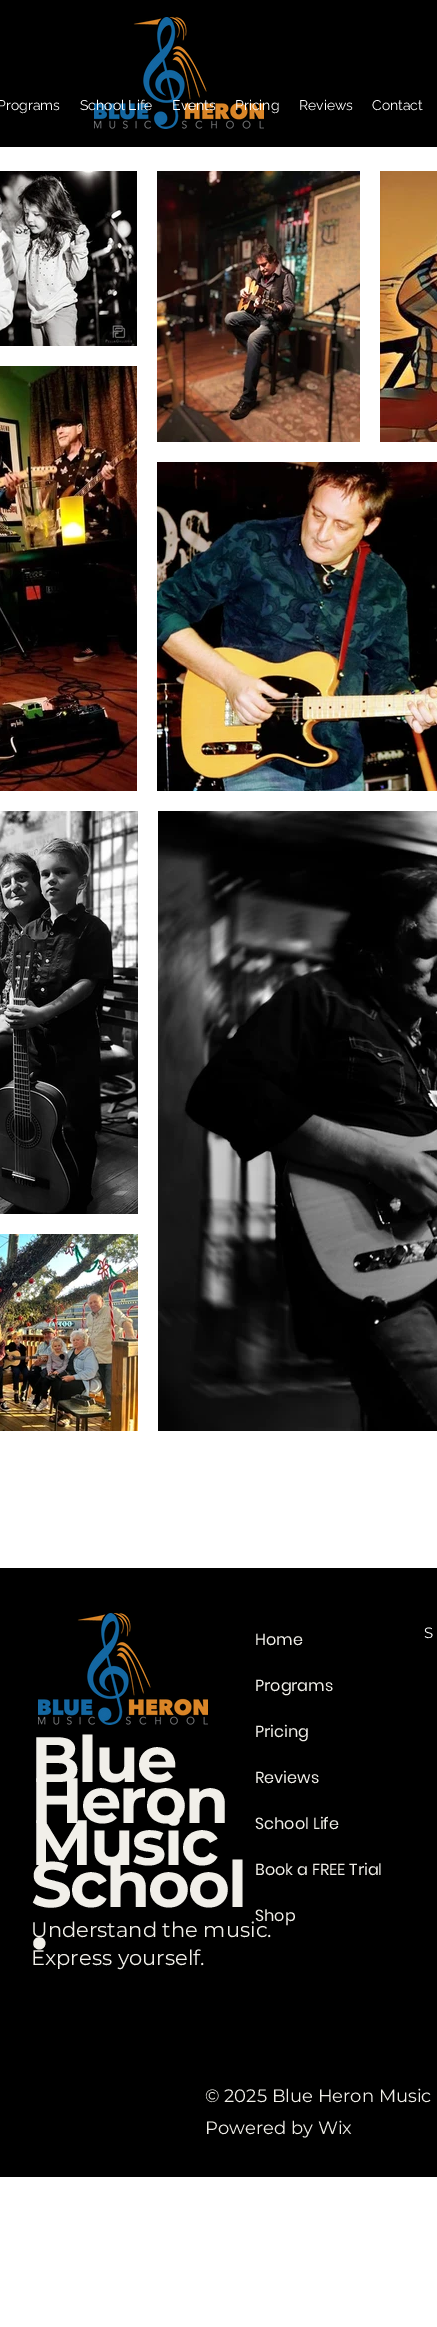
%!PS-Adobe-3.0
%%BoundingBox: 0 0 437 2327
%%LanguageLevel: 3
%%Pages: 1
%%EndComments
%%BeginProlog
/m { moveto } bind def
/fn { [ exch dup neg 0 0 3 -1 roll 0 0 ] selectfont } def
/tx { moveto show } def
/bx { rectfill } def
/im { 5 dict begin { /h /w /y /x /name } { exch def } forall
  gsave x y translate w h scale
  w h 8 [w 0 0 h 0 0] name (r) file false 3 colorimage grestore end } def
%%EndProlog
%%BeginSetup
<< /PageSize [437 2327] >> setpagedevice
%%EndSetup
%%Page: 1 1
0 2327 translate 1 -1 scale
4 setmiterlimit
1 setgray
0 0 437 2327 bx
0 setgray
0 0 437 147 bx
(image0.raw) 94 17 170 112 im
/Raleway-Regular 14 fn
1 setgray
(Programs) -3 110 tx
(School Life) 80 110 tx
(Events) 172 110 tx
(Pricing) 235 110 tx
(Reviews) 299 110 tx
(Contact) 372 110 tx
(image1.raw) 0 171 137 175 im
(image2.raw) 157 171 203 271 im
(image3.raw) 380 171 57 271 im
(image4.raw) 0 366 137 425 im
(image5.raw) 157 462 280 329 im
(image6.raw) 0 811 138 403 im
(image7.raw) 158 811 279 620 im
(image8.raw) 0 1234 138 197 im
0 setgray
0 1568 437 609 bx
(image0.raw) 38 1613 170 112 im
/Montserrat-Bold 64 fn
0.945 0.937 0.914 setrgbcolor
31 1782 m -2 0 (Blue) ashow
31 1823 m -2 0 (Heron) ashow
31 1865 m -2 0 (Music) ashow
31 1907 m -2 0 (School) ashow
31 1949 m -2 0 (.) ashow
/Montserrat-Regular 21 fn
(Understand the music.) 31 1937 tx
(Express yourself.) 31 1965 tx
/Poppins-Regular 16 fn
(Home) 255 1645 tx
(Programs) 255 1691 tx
(Pricing) 255 1737 tx
(Reviews) 255 1783 tx
(School Life) 255 1829 tx
(Book a FREE Trial) 255 1875 tx
(Shop) 255 1921 tx
/Montserrat-Regular 15 fn
1 setgray
(S) 424 1638 tx
/Montserrat-Regular 18 fn
0.945 0.937 0.914 setrgbcolor
(© 2025 Blue Heron Music) 205 2102 tx
(Powered by Wix) 205 2134 tx
showpage
%%EOF
